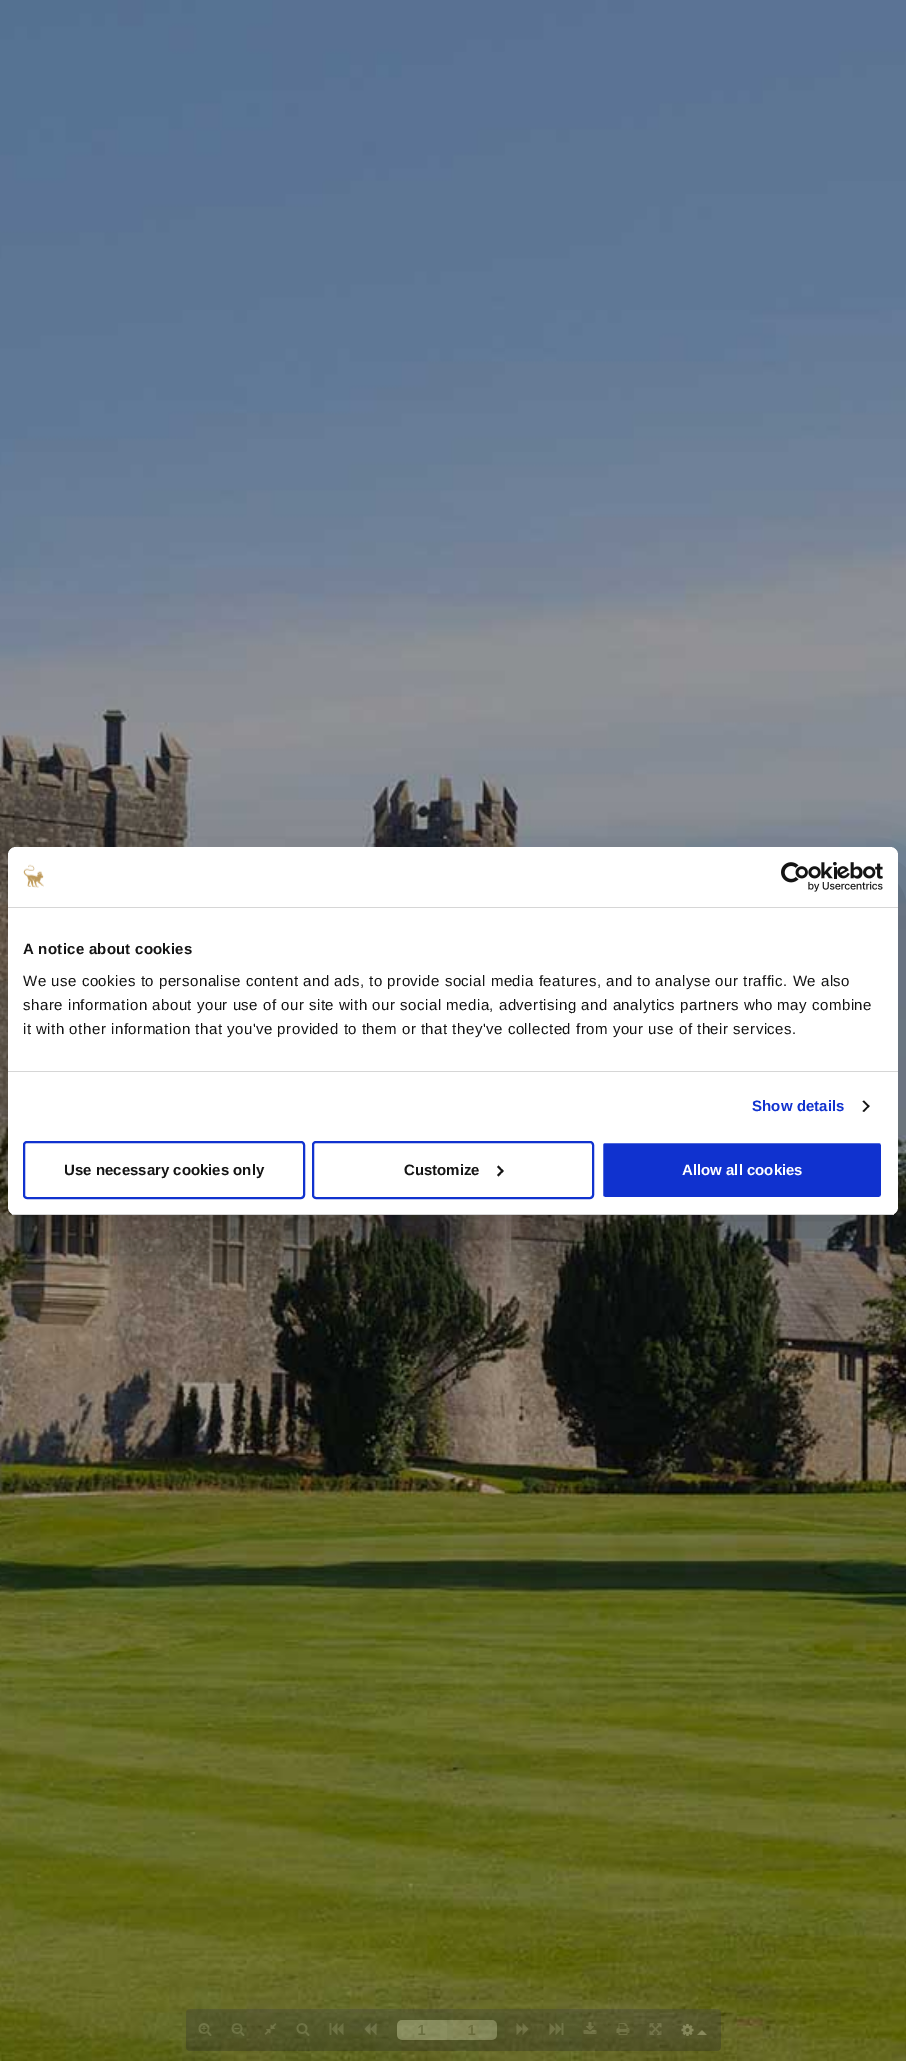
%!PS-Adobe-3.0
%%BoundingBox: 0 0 906 2061
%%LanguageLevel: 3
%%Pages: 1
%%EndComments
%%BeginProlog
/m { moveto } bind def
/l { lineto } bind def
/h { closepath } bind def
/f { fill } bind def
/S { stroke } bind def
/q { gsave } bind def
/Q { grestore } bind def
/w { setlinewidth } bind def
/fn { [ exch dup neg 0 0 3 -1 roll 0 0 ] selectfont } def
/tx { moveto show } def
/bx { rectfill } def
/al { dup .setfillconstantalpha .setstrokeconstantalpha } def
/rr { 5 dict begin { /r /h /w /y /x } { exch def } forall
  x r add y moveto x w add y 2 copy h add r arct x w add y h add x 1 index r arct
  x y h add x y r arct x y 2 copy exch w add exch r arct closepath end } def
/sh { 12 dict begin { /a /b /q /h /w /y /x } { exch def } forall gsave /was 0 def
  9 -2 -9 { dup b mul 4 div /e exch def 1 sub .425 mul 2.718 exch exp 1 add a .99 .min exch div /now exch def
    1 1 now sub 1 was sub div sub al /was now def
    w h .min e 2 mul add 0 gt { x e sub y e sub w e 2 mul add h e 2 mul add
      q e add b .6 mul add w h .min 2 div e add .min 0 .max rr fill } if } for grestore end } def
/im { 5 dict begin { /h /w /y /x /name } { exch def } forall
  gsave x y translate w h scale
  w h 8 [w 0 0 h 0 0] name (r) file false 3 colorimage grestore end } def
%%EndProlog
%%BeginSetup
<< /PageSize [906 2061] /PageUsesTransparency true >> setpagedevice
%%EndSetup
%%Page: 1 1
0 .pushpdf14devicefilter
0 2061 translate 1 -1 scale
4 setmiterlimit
1 setgray
0 0 906 2061 bx
(image0.raw) 0 0 906 2061 im
(image1.raw) 186 2009 535 42 im
0 setgray
8 879 890 368 8 34 0.3 sh
1 setgray
8 847 890 368 8 rr f
0.839 setgray
8 907 890 1 bx
(image2.raw) 23 864 21 24 im
(image3.raw) 781 862 102 30 im
8 1071 890 1 bx
/LiberationSans-Bold 15 fn
0.078 setgray
23 954 m 0.25 0 (A notice about cookies) ashow
/LiberationSans-Regular 15 fn
23 986 m 0.5 0 (We use cookies to personalise content and ads, to provide social media features, and to analyse our traffic. We also) ashow
23 1010 m 0.5 0 (share information about your use of our site with our social media, advertising and analytics partners who may combine) ashow
23 1034 m 0.5 0 (it with other information that you've provided to them or that they've collected from your use of their services.) ashow
/LiberationSans-Bold 15 fn
0.063 0.196 0.812 setrgbcolor
752 1111 m 0.1 0 (Show details) ashow
0.078 setgray
864 1100.5 m 869.5 1106 l 868.5 1107.5 l 862.5 1101.5 l h f
868.5 1105 m 869.5 1106 l 864 1112 l 862.5 1111 l h f
q
8 847 890 368 8 rr clip newpath
0.839 setgray
8 1214 890 1 bx
Q
0.063 0.196 0.812 setrgbcolor
2 w
24 1142 280 56 3 rr S
0.078 setgray
(Use necessary cookies only) 64 1175 tx
0.063 0.196 0.812 setrgbcolor
313 1142 280 56 3 rr S
0.078 setgray
(Customize) 404 1175 tx
498.5 1165.5 m 503.5 1171 l 502.5 1172.5 l 497 1167 l h f
502.5 1169.5 m 503.5 1171 l 498.5 1176.5 l 497 1175 l h f
0.063 0.196 0.812 setrgbcolor
602 1142 280 56 3 rr q f Q
1 setgray
S
(Allow all cookies) 682 1175 tx
.poppdf14devicefilter showpage
%%EOF
